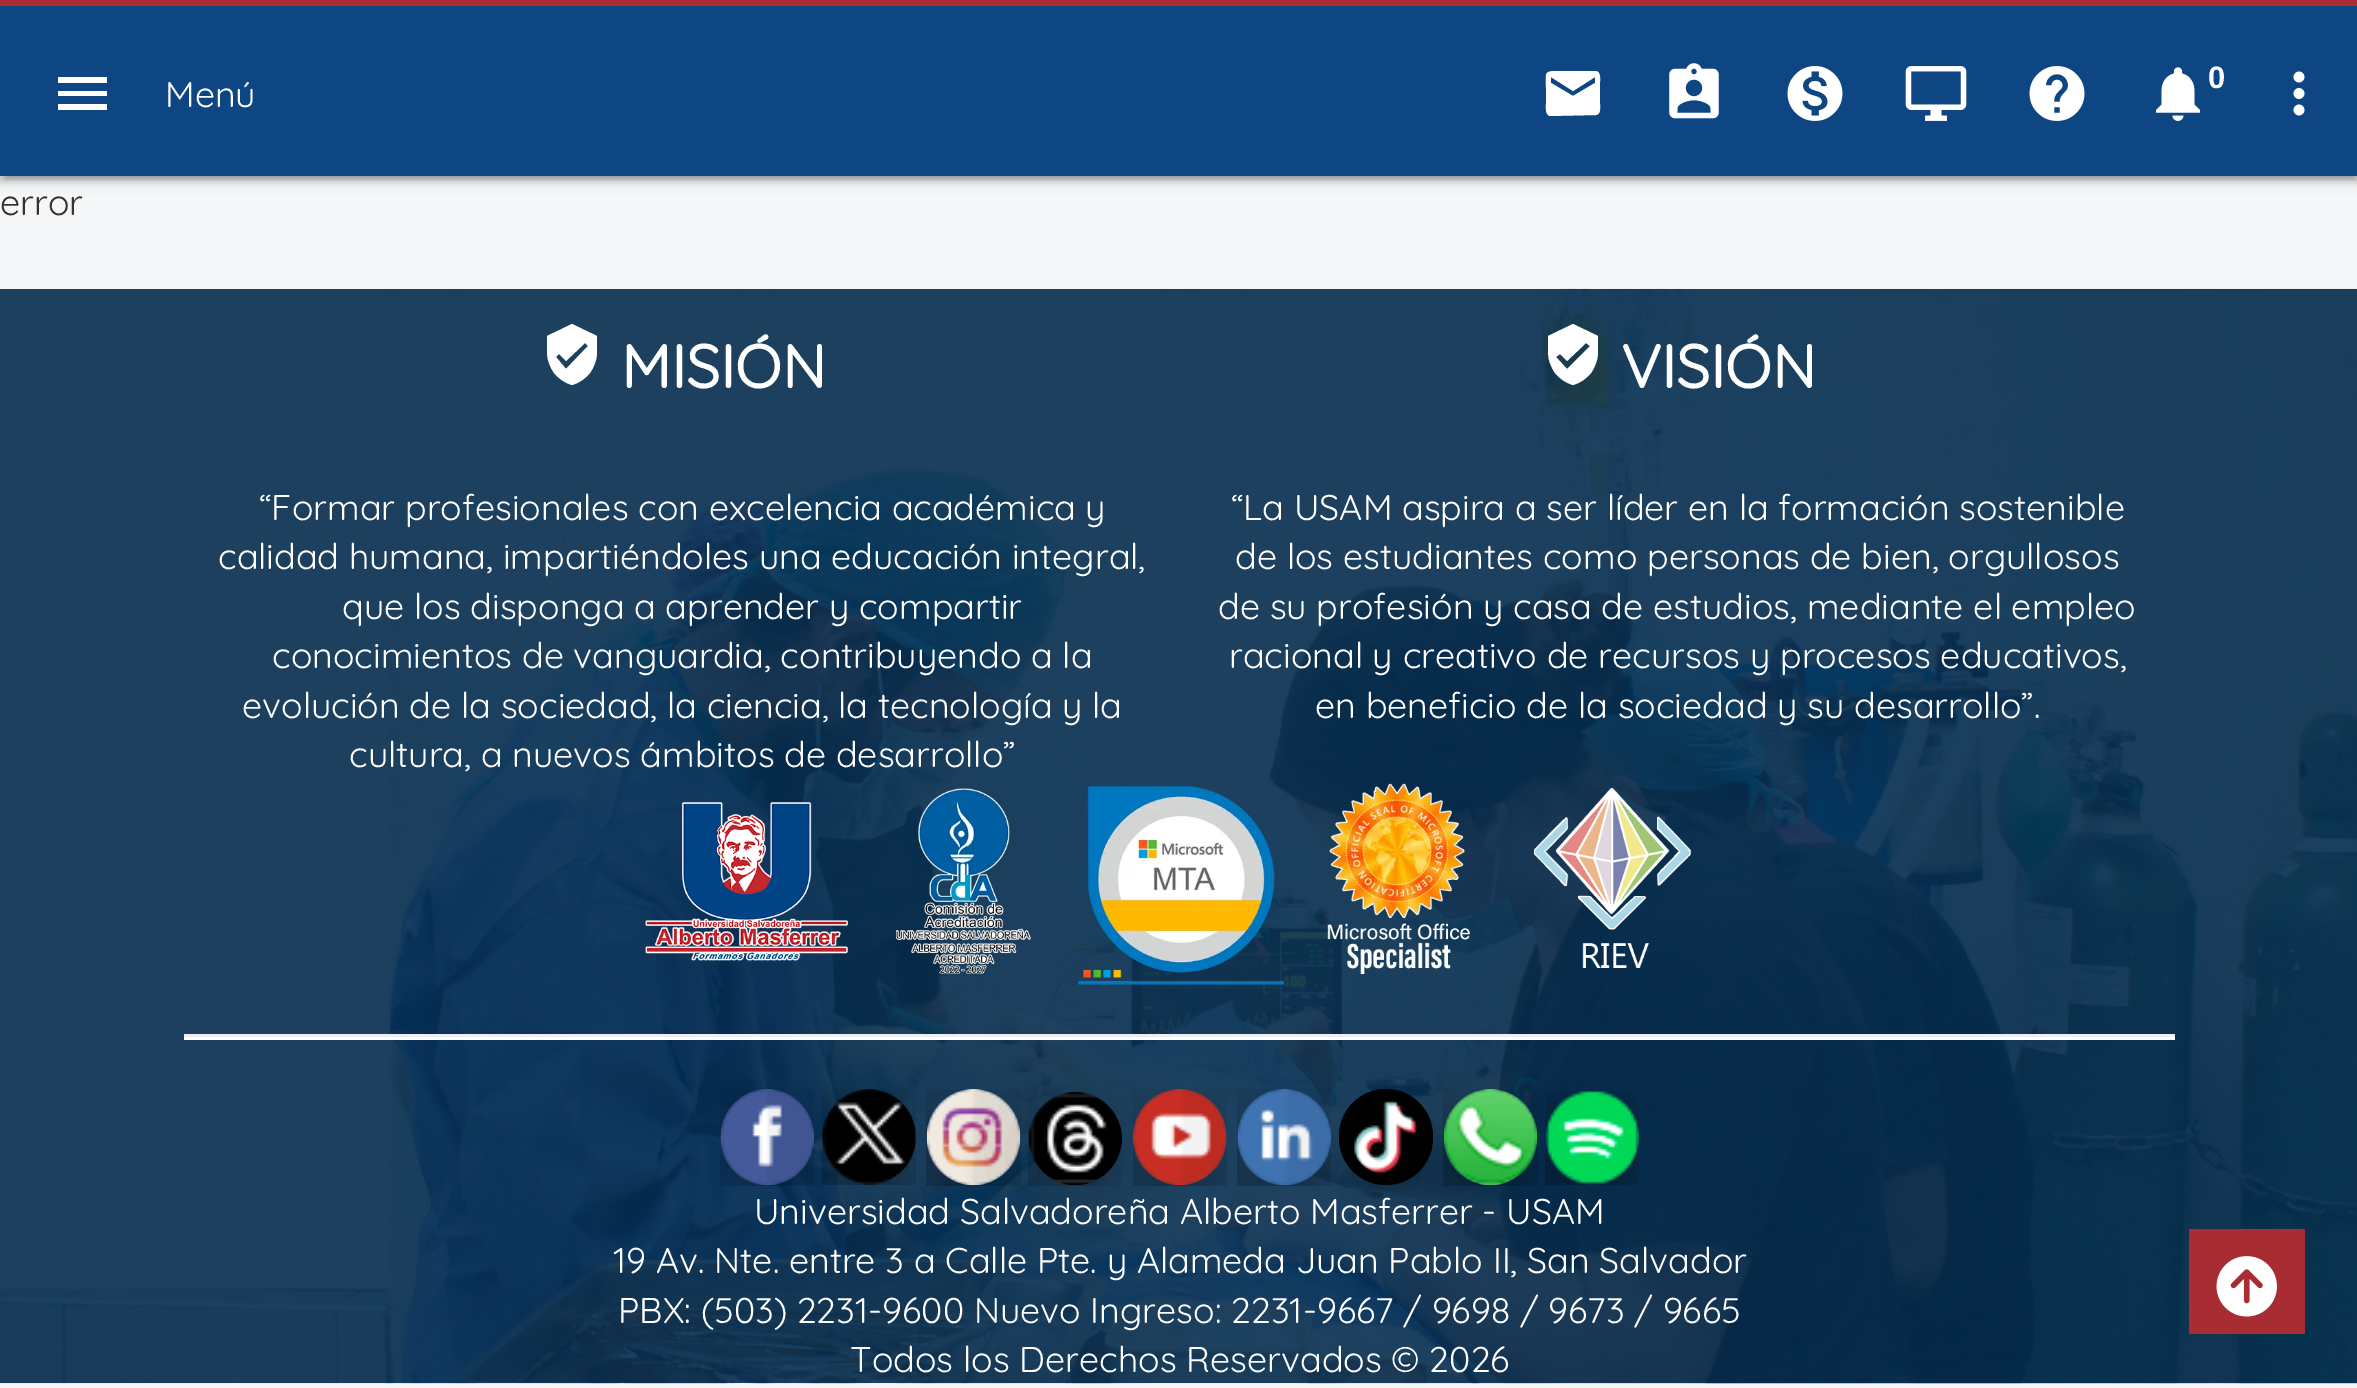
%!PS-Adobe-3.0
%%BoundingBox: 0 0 2357 1388
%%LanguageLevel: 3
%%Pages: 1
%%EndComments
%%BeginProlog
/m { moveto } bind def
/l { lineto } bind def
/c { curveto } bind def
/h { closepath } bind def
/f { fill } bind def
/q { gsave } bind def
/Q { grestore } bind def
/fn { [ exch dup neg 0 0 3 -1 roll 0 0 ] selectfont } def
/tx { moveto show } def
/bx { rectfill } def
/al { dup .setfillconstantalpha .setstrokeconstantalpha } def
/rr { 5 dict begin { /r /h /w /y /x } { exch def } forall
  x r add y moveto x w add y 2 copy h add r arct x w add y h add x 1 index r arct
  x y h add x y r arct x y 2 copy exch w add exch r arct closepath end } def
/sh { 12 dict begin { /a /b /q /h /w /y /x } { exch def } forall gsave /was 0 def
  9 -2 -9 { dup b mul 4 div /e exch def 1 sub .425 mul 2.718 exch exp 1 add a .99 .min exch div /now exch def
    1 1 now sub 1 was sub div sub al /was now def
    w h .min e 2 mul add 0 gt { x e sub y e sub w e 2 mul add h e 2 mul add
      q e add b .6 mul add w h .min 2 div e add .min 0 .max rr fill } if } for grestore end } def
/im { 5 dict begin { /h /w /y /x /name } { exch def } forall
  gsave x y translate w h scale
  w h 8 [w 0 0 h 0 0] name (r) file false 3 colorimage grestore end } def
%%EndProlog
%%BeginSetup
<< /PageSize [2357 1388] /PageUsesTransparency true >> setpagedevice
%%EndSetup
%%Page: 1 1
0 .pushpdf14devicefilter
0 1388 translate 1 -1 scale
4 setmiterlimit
0.957 0.965 0.969 setrgbcolor
0 0 2357 1388 bx
0 setgray
0 3 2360 176 0 7 0.2 sh
6 14 2348 165 0 1.5 0.12 sh
0 6 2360 176 0 3 0.14 sh
0.055 0.275 0.514 setrgbcolor
0 6 2357 170 bx
0.659 0.176 0.196 setrgbcolor
0 0 2357 6 bx
1 setgray
58 77 m 107 77 l 107 83 l 58 83 l h 58 96 m 58 91 l 107 91 l 107 96 l h 58 110 m 58 104 l 107 104 l 107 110 l h f
/Quicksand-Light 35.75 fn
(Menú) 165 107 tx
1595 83 m 1595 77 l 1573 91 l 1551 77 l 1551 83 l 1573 96 l h 1595 71 m 1601 71 1600 78 1600 82 c 1600 104 l 1600 108 1601 114 1596 115 c 1550 116 l 1545 115 1546 108 1546 104 c 1546 88 l 1546 73 1543 71 1558 71 c h f
(image0.raw) 1669 63 50 56 im
(image1.raw) 1787 66 56 55 im
(image2.raw) 1905 66 62 55 im
(image3.raw) 2029 66 56 55 im
(image4.raw) 2155 67 46 54 im
/LiberationSans-Bold 31 fn
(0) 2208 88 tx
(image5.raw) 2293 71 12 45 im
/Quicksand-Light 35.75 fn
0.2 setgray
(error) 0 215 tx
(image6.raw) 0 288 2357 1096 im
1 setgray
566 369 m 588 346 l 585 343 l 566 361 l 559 354 l 556 357 l h 572 324 m 597 336 l 597 352 l 597 360 594 367 590 373 c 585 379 579 383 572 385 c 565 383 559 379 554 373 c 550 367 547 360 547 352 c 547 336 l h f
/Quicksand-Bold 60.5 fn
(MISIÓN) 621 388 tx
/Quicksand-Light 35.75 fn
(“Formar profesionales con excelencia académica y) 259 520 tx
(calidad humana, impartiéndoles una educación integral,) 218 569 tx
(que los disponga a aprender y compartir) 342 619 tx
(conocimientos de vanguardia, contribuyendo a la) 272 668 tx
(evolución de la sociedad, la ciencia, la tecnología y la) 242 718 tx
(cultura, a nuevos ámbitos de desarrollo”) 349 767 tx
1567 369 m 1590 346 l 1586 343 l 1567 361 l 1560 354 l 1556 357 l h 1573 324 m 1598 336 l 1598 352 l 1598 360 1595 367 1591 373 c 1586 379 1580 383 1573 385 c 1566 383 1560 379 1555 373 c 1551 367 1548 360 1548 352 c 1548 336 l h f
/Quicksand-Bold 60.5 fn
(VISIÓN) 1621 388 tx
/Quicksand-Light 35.75 fn
(“La USAM aspira a ser líder en la formación sostenible) 1231 520 tx
(de los estudiantes como personas de bien, orgullosos) 1235 569 tx
(de su profesión y casa de estudios, mediante el empleo) 1218 619 tx
(racional y creativo de recursos y procesos educativos,) 1229 668 tx
(en beneficio de la sociedad y su desarrollo”.) 1315 718 tx
(image7.raw) 645 802 203 159 im
(image8.raw) 896 788 135 186 im
(image9.raw) 1078 786 207 199 im
(image10.raw) 1327 783 143 192 im
(image11.raw) 1533 787 159 181 im
(image12.raw) 720 1089 94 97 im
(image13.raw) 822 1089 94 96 im
(image14.raw) 926 1089 95 97 im
0.933 setgray
184 1034 1991 3 bx
1 setgray
184 1037 1991 3 bx
q
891 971 m 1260 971 l 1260 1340 l 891 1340 l h 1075.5 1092 m 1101 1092 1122 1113 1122 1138.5 c 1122 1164 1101 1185 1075.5 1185 c 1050 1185 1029 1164 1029 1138.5 c 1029 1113 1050 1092 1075.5 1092 c h eoclip newpath
0 setgray
1015 1095 121 121 60.5 41 0.12 sh
Q
(image17.raw) 1237 1089 94 97 im
0 setgray
1359 1130 55 58 27.5 14 0.2 sh
(image15.raw) 1028 1091 94 95 im
(image16.raw) 1133 1089 94 97 im
1339 1089 94 96 47 rr f
(image18.raw) 1443 1089 95 97 im
(image19.raw) 1545 1091 94 94 im
(image20.raw) 1354 1101 62 72 im
1 setgray
(Universidad Salvadoreña Alberto Masferrer - USAM) 754 1224 tx
(19 Av. Nte. entre 3 a Calle Pte. y Alameda Juan Pablo II, San Salvador) 613 1273 tx
(PBX: \(503\) 2231-9600 Nuevo Ingreso: 2231-9667 / 9698 / 9673 / 9665) 618 1323 tx
(Todos los Derechos Reservados © 2026) 850 1372 tx
0.659 0.176 0.196 setrgbcolor
2189 1229 116 105 bx
(image21.raw) 2216 1256 61 61 im
.poppdf14devicefilter showpage
%%EOF
